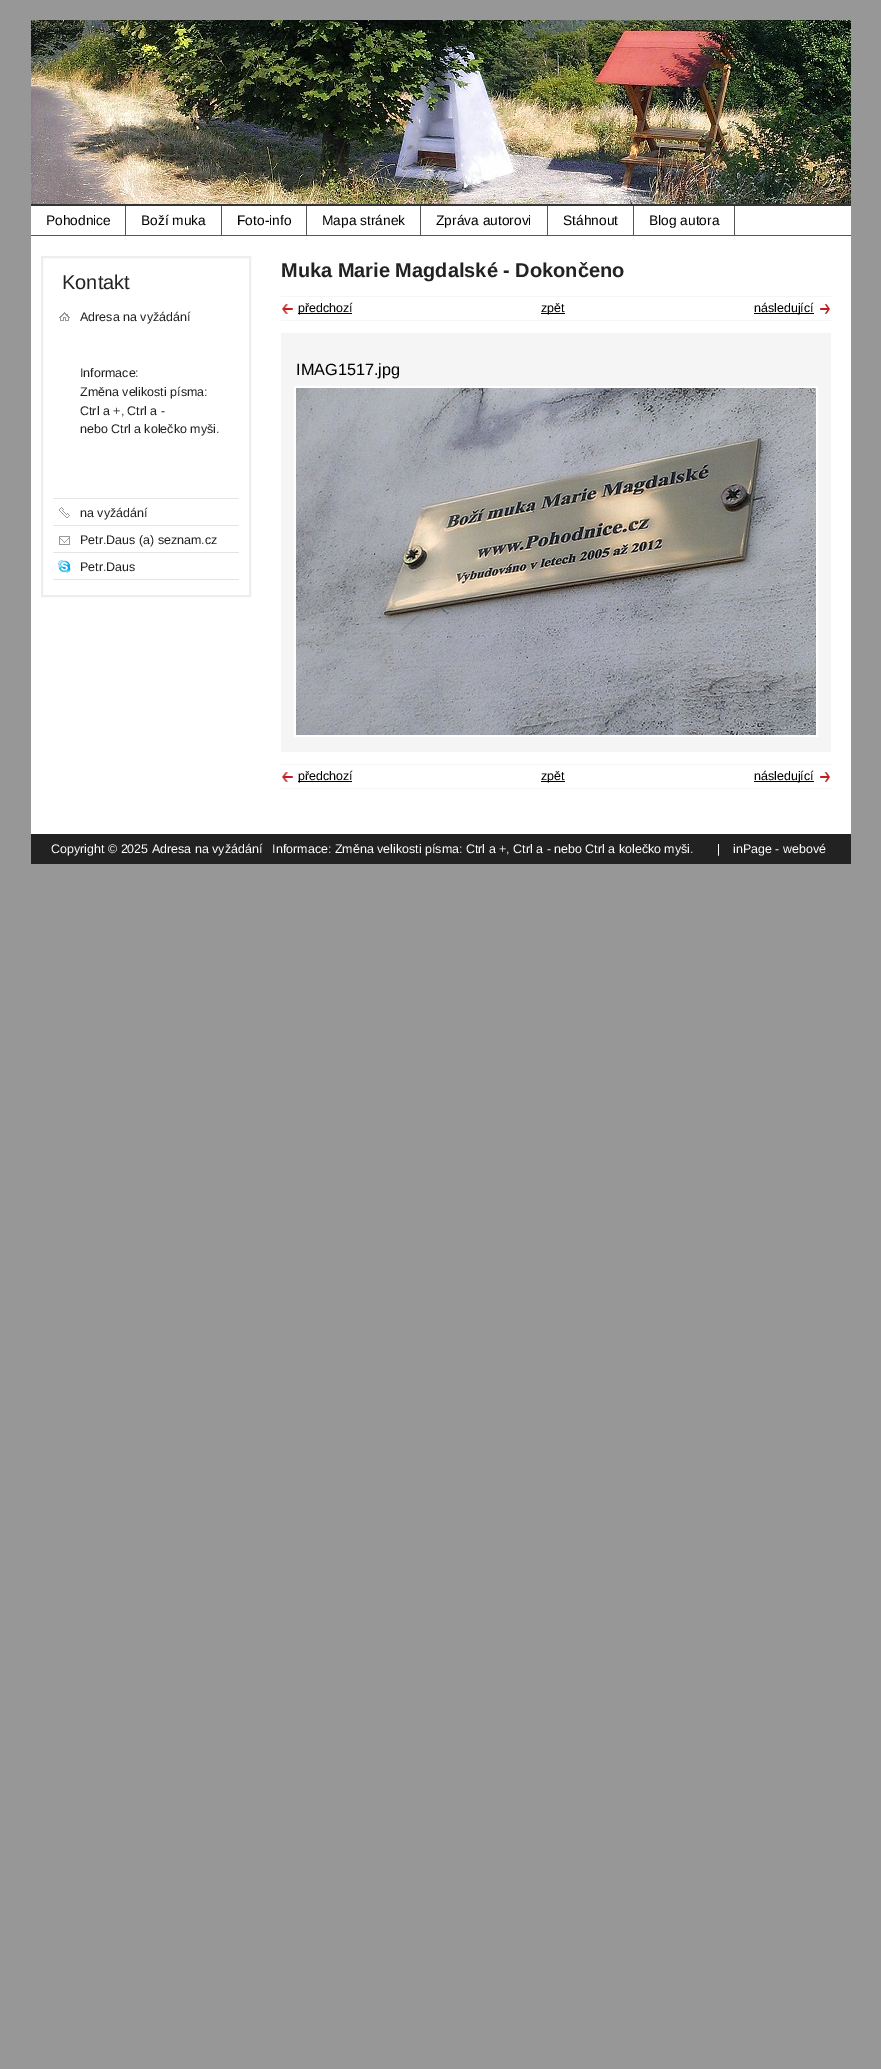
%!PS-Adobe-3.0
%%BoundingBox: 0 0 881 2069
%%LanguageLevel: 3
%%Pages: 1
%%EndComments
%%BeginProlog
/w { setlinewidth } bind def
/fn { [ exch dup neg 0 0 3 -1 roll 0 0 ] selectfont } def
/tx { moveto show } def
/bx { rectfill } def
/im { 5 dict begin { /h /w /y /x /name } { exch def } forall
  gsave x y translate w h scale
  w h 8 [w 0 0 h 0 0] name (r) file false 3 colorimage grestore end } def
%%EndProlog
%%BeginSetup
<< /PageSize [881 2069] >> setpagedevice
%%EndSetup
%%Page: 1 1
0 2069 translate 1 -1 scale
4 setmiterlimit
0.592 setgray
0 0 881 2069 bx
1 setgray
31 206 820 628 bx
0.2 setgray
31 204 820 2 bx
(image0.raw) 31 20 820 184 im
0.333 setgray
31 235 820 1 bx
125 206 1 29 bx
/LiberationSans-Regular 13.75 fn
0 setgray
(Pohodnice) 46 225 tx
0.333 setgray
221 206 1 29 bx
0 setgray
(Boží muka) 141 225 tx
0.333 setgray
306 206 1 29 bx
0 setgray
(Foto-info) 237 225 tx
0.333 setgray
420 206 1 29 bx
0 setgray
(Mapa stránek) 322 225 tx
0.333 setgray
547 206 1 29 bx
0 setgray
(Zpráva autorovi) 436 225 tx
0.333 setgray
633 206 1 29 bx
0 setgray
(Stáhnout) 563 225 tx
0.333 setgray
734 206 1 29 bx
0 setgray
(Blog autora) 649 225 tx
0.933 setgray
2 w
42 257 208 339 rectstroke
/LiberationSans-Regular 20 fn
0.133 setgray
(Kontakt) 62 289 tx
(image1.raw) 59 312 11 9 im
0.894 setgray
53 498 186 1 bx
/LiberationSans-Regular 12.48 fn
0.133 setgray
(Adresa na vyžádání) 80 321 tx
(Informace:) 80 377 tx
(Změna velikosti písma:) 80 396 tx
(Ctrl a +, Ctrl a -) 80 415 tx
(nebo Ctrl a kolečko myši.) 80 433 tx
(image2.raw) 59 507 11 11 im
0.894 setgray
53 525 186 1 bx
0.133 setgray
(na vyžádání) 80 517 tx
(image3.raw) 59 536 11 9 im
0.894 setgray
53 552 186 1 bx
0.133 setgray
(Petr.Daus \(a\) seznam.cz) 80 544 tx
(image4.raw) 58 560 13 13 im
0.894 setgray
53 579 186 1 bx
0.133 setgray
(Petr.Daus) 80 571 tx
/LiberationSans-Bold 20 fn
(Muka Marie Magdalské - Dokončeno) 281 277 tx
0.961 setgray
281 296 550 1 bx
281 320 550 1 bx
(image5.raw) 282 304 11 10 im
0 setgray
298 313 54 1 bx
/LiberationSans-Regular 12.48 fn
(předchozí) 298 312 tx
541 313 24 1 bx
(zpět) 541 312 tx
(image6.raw) 820 304 10 10 im
754 313 60 1 bx
(následující) 754 312 tx
0.961 setgray
281 333 550 419 bx
/LiberationSans-Regular 16.25 fn
0 setgray
(IMAG1517.jpg) 296 375 tx
1 setgray
295 387 522 349 rectstroke
(image7.raw) 296 388 520 347 im
0.961 setgray
281 764 550 1 bx
281 788 550 1 bx
(image5.raw) 282 772 11 10 im
0 setgray
298 781 54 1 bx
/LiberationSans-Regular 12.48 fn
(předchozí) 298 780 tx
541 781 24 1 bx
(zpět) 541 780 tx
(image6.raw) 820 772 10 10 im
754 781 60 1 bx
(následující) 754 780 tx
0.133 setgray
31 834 820 30 bx
1 setgray
(Copyright © 2025 Adresa na vyžádání   Informace: Změna velikosti písma: Ctrl a +, Ctrl a - nebo Ctrl a kolečko myši.) 51 853 tx
(|) 717 853 tx
(inPage - webové) 733 853 tx
showpage
%%EOF
